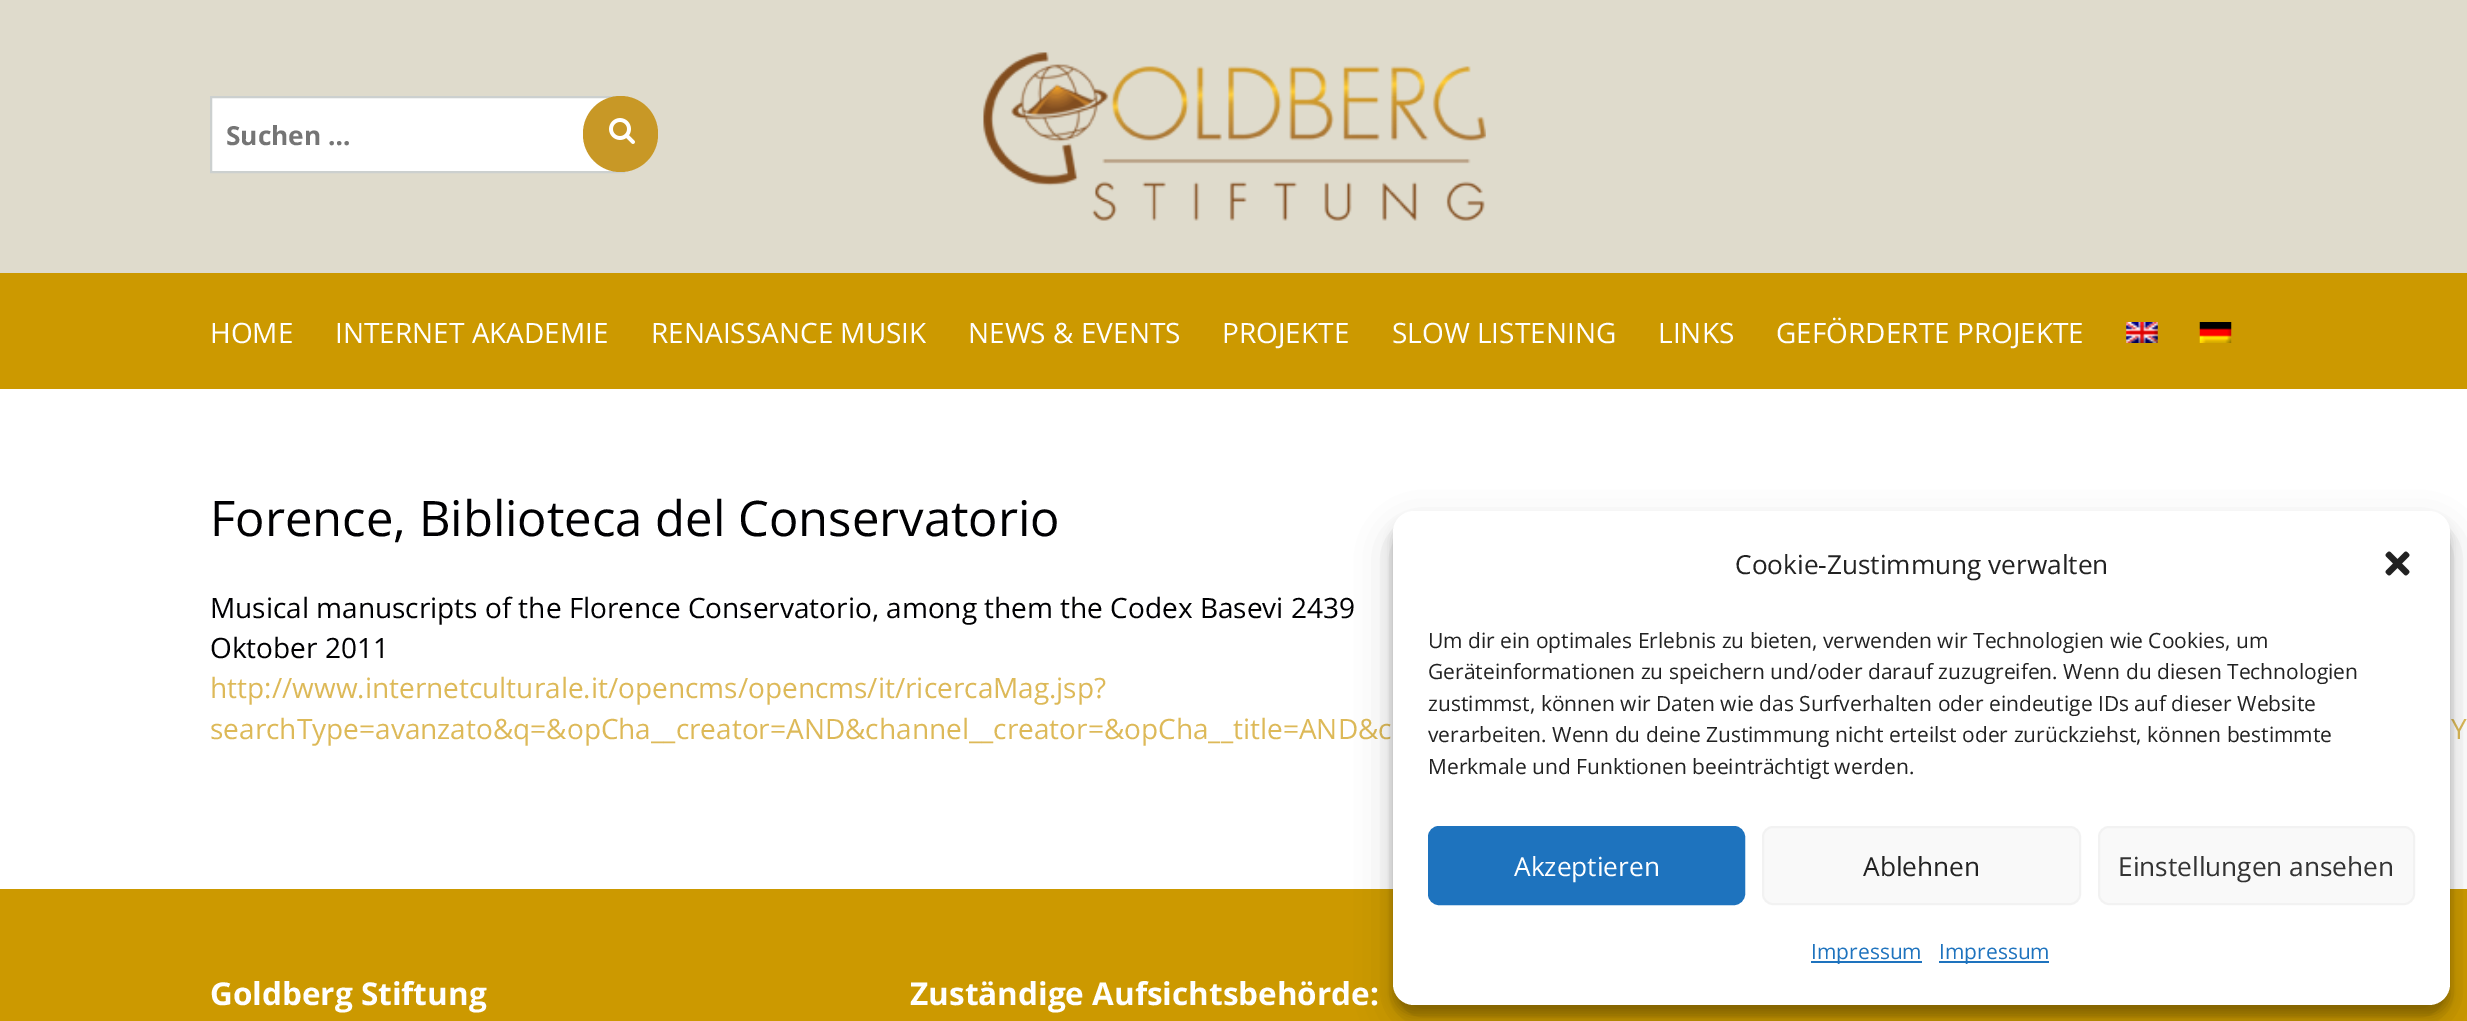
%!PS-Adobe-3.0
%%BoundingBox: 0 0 2467 1021
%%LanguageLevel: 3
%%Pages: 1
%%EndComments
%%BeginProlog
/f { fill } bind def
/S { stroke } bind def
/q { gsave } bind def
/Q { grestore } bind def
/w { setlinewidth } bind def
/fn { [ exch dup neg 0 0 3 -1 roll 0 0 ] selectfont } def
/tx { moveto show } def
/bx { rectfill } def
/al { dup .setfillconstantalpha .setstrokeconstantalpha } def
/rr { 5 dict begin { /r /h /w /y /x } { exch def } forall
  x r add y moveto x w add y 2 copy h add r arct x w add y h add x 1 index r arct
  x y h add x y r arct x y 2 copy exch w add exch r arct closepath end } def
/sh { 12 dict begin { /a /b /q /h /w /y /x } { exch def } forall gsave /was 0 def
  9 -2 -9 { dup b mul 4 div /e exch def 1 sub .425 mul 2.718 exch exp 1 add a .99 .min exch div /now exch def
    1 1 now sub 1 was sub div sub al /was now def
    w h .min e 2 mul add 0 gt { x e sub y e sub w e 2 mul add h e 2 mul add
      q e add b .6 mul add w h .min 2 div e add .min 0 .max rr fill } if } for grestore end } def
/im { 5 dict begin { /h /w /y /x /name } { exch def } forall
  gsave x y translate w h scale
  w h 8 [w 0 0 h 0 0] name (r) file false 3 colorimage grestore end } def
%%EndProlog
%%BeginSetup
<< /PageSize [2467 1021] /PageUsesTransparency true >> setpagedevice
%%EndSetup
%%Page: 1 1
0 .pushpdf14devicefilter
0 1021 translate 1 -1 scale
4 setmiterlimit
1 setgray
0 0 2467 1021 bx
0.875 0.859 0.8 setrgbcolor
0 0 2467 273 bx
1 setgray
212 98 400 73 bx
0.8 0.816 0.812 setrgbcolor
2 w
211 97 413 75 rectstroke
/OpenSans-Bold 26.25 fn
0.459 setgray
(Suchen …) 226 145 tx
0.784 0.596 0.149 setrgbcolor
583 96 75 76 37.5 rr f
(image0.raw) 609 118 26 26 im
(image1.raw) 983 52 503 169 im
0.8 0.6 0 setrgbcolor
0 273 2467 116 bx
/OpenSans-Regular 28 fn
1 setgray
(HOME) 210 343 tx
(INTERNET AKADEMIE) 335 343 tx
(RENAISSANCE MUSIK) 651 343 tx
(NEWS & EVENTS) 968 343 tx
(PROJEKTE) 1222 343 tx
(SLOW LISTENING) 1392 343 tx
(LINKS) 1658 343 tx
(GEFÖRDERTE PROJEKTE) 1776 343 tx
(image2.raw) 2126 322 32 21 im
(image3.raw) 2199 322 33 21 im
/OpenSans-Regular 49 fn
0 0 0.008 setrgbcolor
(Forence, Biblioteca del Conservatorio) 210 536 tx
/OpenSans-Regular 28 fn
(Musical manuscripts of the Florence Conservatorio, among them the Codex Basevi 2439) 210 618 tx
(Oktober 2011) 210 658 tx
0.867 0.725 0.345 setrgbcolor
(http://www.internetculturale.it/opencms/opencms/it/ricercaMag.jsp?) 210 698 tx
(searchType=avanzato&q=&opCha__creator=AND&channel__creator=&opCha__title=AND&c) 210 739 tx
(Y) 2451 739 tx
0.8 0.6 0 setrgbcolor
0 889 2467 132 bx
0 setgray
1393 522 1057 493 21 5 0.23 sh
1393 529 1057 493 21 17.5 0.19 sh
1 setgray
1393 511 1057 494 21 rr f
/OpenSans-Regular 26.25 fn
0.133 setgray
(Cookie-Zustimmung verwalten) 1735 574 tx
(image4.raw) 2385 551 25 25 im
/OpenSans-Regular 21 fn
(Um dir ein optimales Erlebnis zu bieten, verwenden wir Technologien wie Cookies, um) 1428 648 tx
(Geräteinformationen zu speichern und/oder darauf zuzugreifen. Wenn du diesen Technologien) 1428 679 tx
(zustimmst, können wir Daten wie das Surfverhalten oder eindeutige IDs auf dieser Website) 1428 711 tx
(verarbeiten. Wenn du deine Zustimmung nicht erteilst oder zurückziehst, können bestimmte) 1428 742 tx
(Merkmale und Funktionen beeinträchtigt werden.) 1428 774 tx
0.118 0.451 0.745 setrgbcolor
1429 827 315 77 10 rr q f Q
S
/OpenSans-Regular 26.25 fn
1 setgray
(Akzeptieren) 1514 876 tx
0.976 setgray
1763 827 317 77 10 rr q f Q
0.949 setgray
S
0.133 setgray
(Ablehnen) 1863 876 tx
0.976 setgray
2099 827 315 77 10 rr q f Q
0.949 setgray
S
0.2 setgray
(Einstellungen ansehen) 2118 876 tx
0.118 0.451 0.745 setrgbcolor
1811 961 111 2 bx
/OpenSans-Regular 21 fn
(Impressum) 1811 959 tx
1939 961 110 2 bx
(Impressum) 1939 959 tx
/OpenSans-Bold 31.5 fn
1 setgray
(Goldberg Stiftung) 210 1005 tx
(Zuständige Aufsichtsbehörde:) 910 1005 tx
.poppdf14devicefilter showpage
%%EOF
